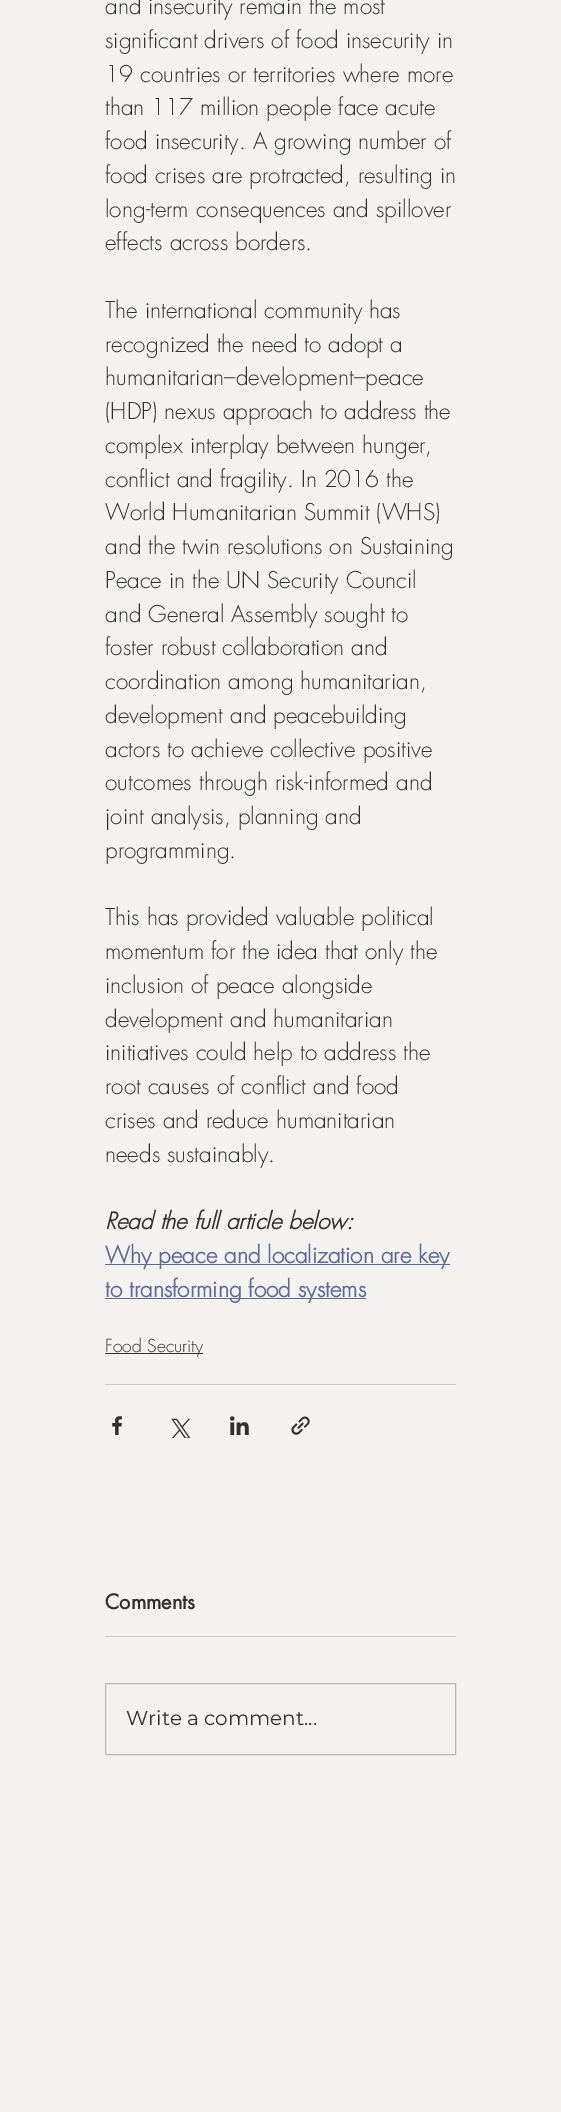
%!PS-Adobe-3.0
%%BoundingBox: 0 0 561 2112
%%LanguageLevel: 3
%%Pages: 1
%%EndComments
%%BeginProlog
/fn { [ exch dup neg 0 0 3 -1 roll 0 0 ] selectfont } def
/tx { moveto show } def
/bx { rectfill } def
/im { 5 dict begin { /h /w /y /x /name } { exch def } forall
  gsave x y translate w h scale
  w h 8 [w 0 0 h 0 0] name (r) file false 3 colorimage grestore end } def
%%EndProlog
%%BeginSetup
<< /PageSize [561 2112] >> setpagedevice
%%EndSetup
%%Page: 1 1
0 2112 translate 1 -1 scale
4 setmiterlimit
0.957 0.949 0.941 setrgbcolor
0 0 561 2112 bx
/futura-Light 22.5 fn
0.192 0.188 0.188 setrgbcolor
(and insecurity remain the most) 105 14 tx
(significant drivers of food insecurity in) 105 48 tx
(19 countries or territories where more) 105 82 tx
(than 117 million people face acute) 105 115 tx
(food insecurity. A growing number of) 105 149 tx
(food crises are protracted, resulting in) 105 183 tx
(long-term consequences and spillover) 105 217 tx
(effects across borders.) 105 250 tx
(The international community has) 105 318 tx
(recognized the need to adopt a) 105 352 tx
(humanitarian–development–peace) 105 385 tx
(\(HDP\) nexus approach to address the) 105 419 tx
(complex interplay between hunger,) 105 453 tx
(conflict and fragility. In 2016 the) 105 487 tx
(World Humanitarian Summit \(WHS\)) 105 520 tx
(and the twin resolutions on Sustaining) 105 554 tx
(Peace in the UN Security Council) 105 588 tx
(and General Assembly sought to) 105 622 tx
(foster robust collaboration and) 105 655 tx
(coordination among humanitarian,) 105 689 tx
(development and peacebuilding) 105 723 tx
(actors to achieve collective positive) 105 757 tx
(outcomes through risk-informed and) 105 790 tx
(joint analysis, planning and) 105 824 tx
(programming.) 105 858 tx
(This has provided valuable political) 105 925 tx
(momentum for the idea that only the) 105 959 tx
(inclusion of peace alongside) 105 993 tx
(development and humanitarian) 105 1027 tx
(initiatives could help to address the) 105 1060 tx
(root causes of conflict and food) 105 1094 tx
(crises and reduce humanitarian) 105 1128 tx
(needs sustainably.) 105 1162 tx
/futura-BoldItalic 22.5 fn
(Read the full article below:) 105 1229 tx
0.361 0.42 0.576 setrgbcolor
105 1264 345 1 bx
/futura-Bold 22.5 fn
(Why peace and localization are key) 105 1263 tx
105 1298 261 1 bx
(to transforming food systems) 105 1297 tx
0.192 0.188 0.188 setrgbcolor
105 1353 98 1 bx
/futura-Light 17.5 fn
(Food Security) 105 1352 tx
0.804 0.796 0.792 setrgbcolor
105 1384 351 1 bx
(image0.raw) 112 1416 10 19 im
(image1.raw) 171 1418 19 20 im
(image2.raw) 230 1416 19 19 im
(image3.raw) 291 1416 19 19 im
/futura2-Bold 20 fn
0.192 0.188 0.188 setrgbcolor
(Comments) 105 1609 tx
0.804 0.796 0.792 setrgbcolor
105 1636 351 1 bx
0.729 0.722 0.714 setrgbcolor
105.5 1683.5 350 71 rectstroke
/Montserrat-Regular 20 fn
0.192 0.188 0.188 setrgbcolor
(Write a comment...) 126 1725 tx
showpage
%%EOF
